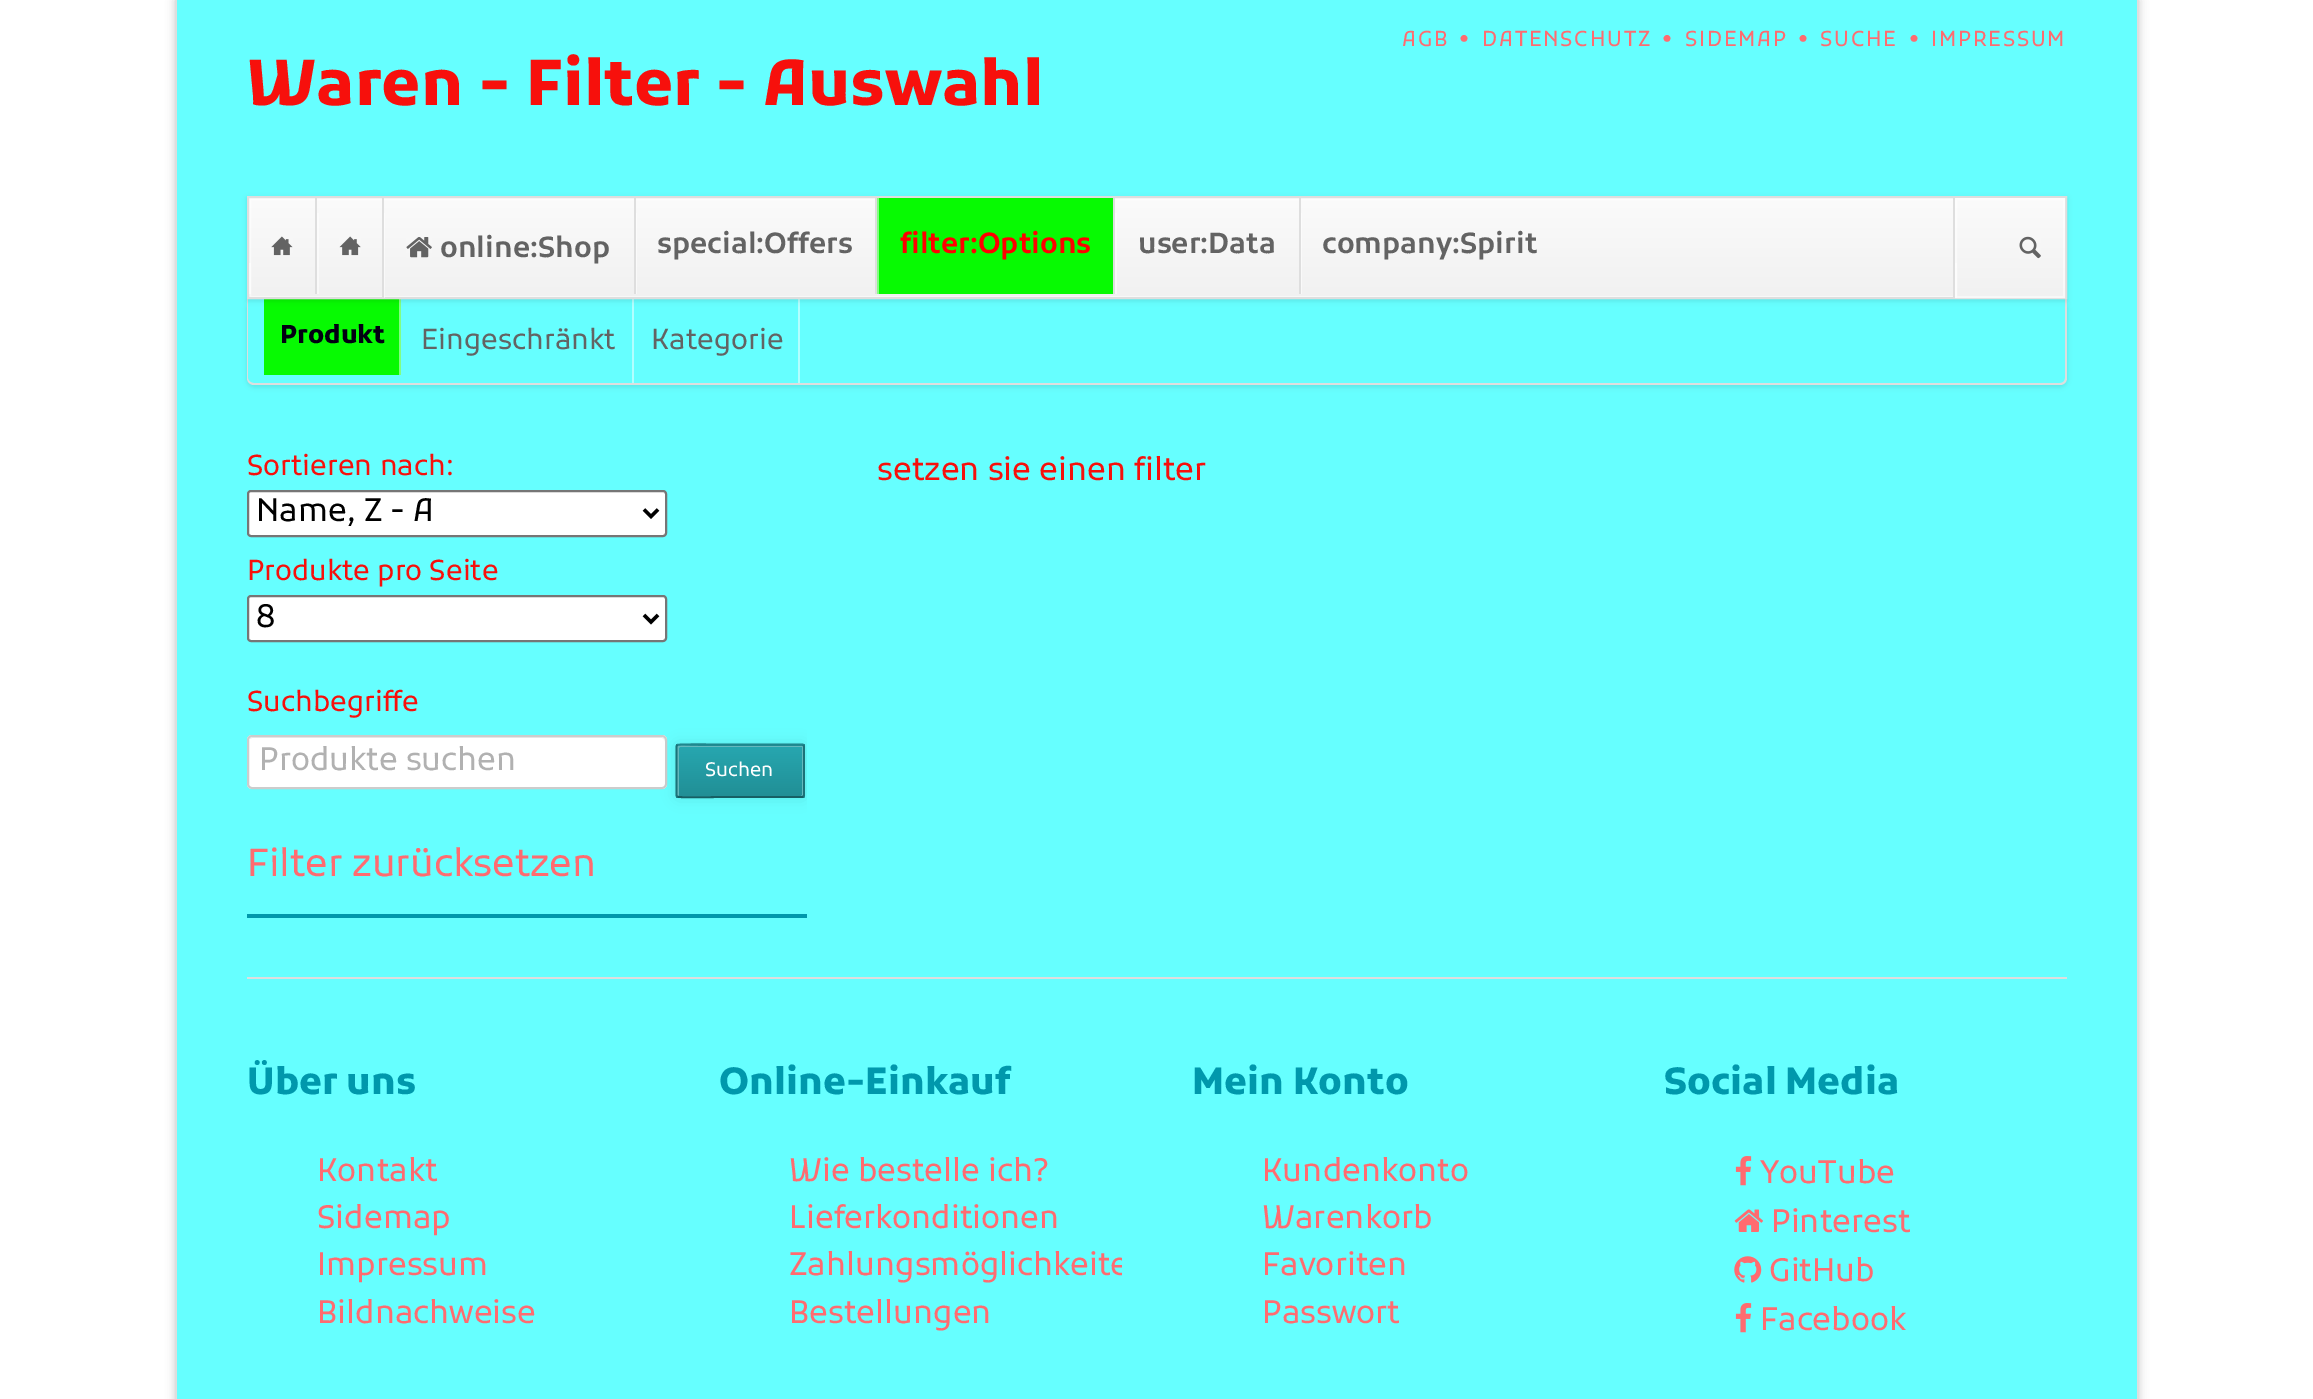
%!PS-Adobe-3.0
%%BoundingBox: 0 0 2313 1399
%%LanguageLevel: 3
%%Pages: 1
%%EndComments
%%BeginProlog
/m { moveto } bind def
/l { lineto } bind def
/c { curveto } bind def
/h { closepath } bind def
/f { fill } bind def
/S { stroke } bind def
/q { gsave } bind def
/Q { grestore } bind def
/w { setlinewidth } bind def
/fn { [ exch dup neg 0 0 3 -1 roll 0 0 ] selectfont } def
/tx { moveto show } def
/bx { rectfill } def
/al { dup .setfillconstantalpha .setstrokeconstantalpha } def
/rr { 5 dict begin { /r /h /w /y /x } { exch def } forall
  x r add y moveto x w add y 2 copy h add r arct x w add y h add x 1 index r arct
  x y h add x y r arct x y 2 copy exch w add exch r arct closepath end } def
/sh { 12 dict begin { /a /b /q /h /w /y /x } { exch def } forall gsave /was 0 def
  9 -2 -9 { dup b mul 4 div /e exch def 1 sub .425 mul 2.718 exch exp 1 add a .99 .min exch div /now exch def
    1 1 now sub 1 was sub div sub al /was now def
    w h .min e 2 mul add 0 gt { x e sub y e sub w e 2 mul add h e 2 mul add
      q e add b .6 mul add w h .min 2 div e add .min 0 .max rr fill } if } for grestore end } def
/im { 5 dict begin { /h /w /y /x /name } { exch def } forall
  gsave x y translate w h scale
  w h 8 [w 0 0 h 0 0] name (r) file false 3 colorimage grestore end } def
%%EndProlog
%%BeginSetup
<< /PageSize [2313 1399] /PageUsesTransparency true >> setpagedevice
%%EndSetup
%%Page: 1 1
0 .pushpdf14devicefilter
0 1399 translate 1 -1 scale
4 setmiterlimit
1 setgray
0 0 2313 1399 bx
0 setgray
175 0 1964 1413 0 4.5 0.2 sh
0.4 1 1 setrgbcolor
177 0 1960 1399 bx
0.871 setgray
2137 0 2 1399 bx
175 0 2 1399 bx
/Kufam-Regular 21 fn
1 0.42 0.439 setrgbcolor
1402 46 m 1.75 0 (AGB) ashow
1459 46 m 1.75 0 (•) ashow
1482 46 m 1.75 0 (DATENSCHUTZ) ashow
1662 46 m 1.75 0 (•) ashow
1685 46 m 1.75 0 (SIDEMAP) ashow
1798 46 m 1.75 0 (•) ashow
1820 46 m 1.75 0 (SUCHE) ashow
1909 46 m 1.75 0 (•) ashow
1931 46 m 1.75 0 (IMPRESSUM) ashow
/Kufam-Bold 63 fn
0.969 0.063 0.047 setrgbcolor
(Waren - Filter - Auswahl) 247 105 tx
q
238 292 m 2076 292 l 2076 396 l 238 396 l h 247 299 m 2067 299 l 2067 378 l 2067 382 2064 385 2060 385 c 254 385 l 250 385 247 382 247 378 c h eoclip newpath
0 setgray
247 301 1820 86 7 2.5 0.1 sh
Q
0.871 setgray
247 299 m 2067 299 l 2067 378 l 2067 382 2064 385 2060 385 c 254 385 l 250 385 247 382 247 378 c h 248 299 m 2065 299 l 2065 378 l 2065 381 2063 383 2060 383 c 254 383 l 251 383 248 381 248 378 c h eofill
0.027 0.98 0.008 setrgbcolor
264 299 135 76 bx
0.514 0.992 0.506 setrgbcolor
399 299 2 76 bx
0.698 1 1 setrgbcolor
632 299 2 84 bx
798 299 2 84 bx
0 setgray
247 198 1820 103 0 2.5 0.1 sh
q 249 198 m 1953 198 l 1953 297 l 249 297 l h clip newpath
<< /ShadingType 2 /ColorSpace /DeviceRGB /Coords [1157 198 1157 298] /Extend [true true] /Function << /FunctionType 2 /Domain [0 1] /C0 [0.984 0.984 0.984] /C1 [0.945 0.945 0.945] /N 1 >> >> shfill Q
0.5 al
1 setgray
2 w
250 199 1814 98 rectstroke
1 al
0.871 setgray
248 197 1818 101 rectstroke
0.5 al
1 setgray
249 263 2 31 bx
1 al
(image0.raw) 271 236 22 20 im
0.5 al
317 213 2 81 bx
1 al
0.871 setgray
315 198 2 96 bx
(image1.raw) 339 236 22 20 im
0.5 al
1 setgray
384 213 1 85 bx
1 al
0.871 setgray
382 198 2 100 bx
(image2.raw) 406 237 26 21 im
/Kufam-SemiBold 28.25 fn
0.388 setgray
(online:Shop) 440 257 tx
0.5 al
1 setgray
636 213 1 81 bx
1 al
0.871 setgray
634 198 2 96 bx
0.388 setgray
(special:Offers) 657 253 tx
0.027 0.98 0.008 setrgbcolor
879 198 234 96 bx
0.514 0.992 0.506 setrgbcolor
877 198 2 96 bx
0.871 setgray
875 198 2 96 bx
1 0 0 setrgbcolor
(filter:Options) 900 253 tx
0.5 al
1 setgray
1115 213 2 81 bx
1 al
0.871 setgray
1113 198 2 96 bx
0.388 setgray
(user:Data) 1138 253 tx
0.5 al
1 setgray
1301 213 1 81 bx
1 al
0.871 setgray
1299 198 2 96 bx
0.388 setgray
(company:Spirit) 1322 253 tx
q 1955 198 m 2065 198 l 2065 298 l 1955 298 l h clip newpath
<< /ShadingType 2 /ColorSpace /DeviceRGB /Coords [2010 198 2010 298] /Extend [true true] /Function << /FunctionType 2 /Domain [0 1] /C0 [0.984 0.984 0.984] /C1 [0.945 0.945 0.945] /N 1 >> >> shfill Q
0.5 al
1 setgray
1956 199 108 98 rectstroke
1955 263 2 35 bx
1 al
0.871 setgray
1953 198 2 100 bx
(image3.raw) 2019 236 22 23 im
/Kufam-Bold 25 fn
0.008 0 0.071 setrgbcolor
(Produkt) 280 343 tx
/Kufam-Regular 28 fn
0.388 setgray
(Eingeschränkt) 421 349 tx
(Kategorie) 651 349 tx
0 0.596 0.675 setrgbcolor
247 914 560 4 bx
0.969 0.063 0.047 setrgbcolor
(Sortieren nach:) 247 475 tx
1 setgray
248 491 418 45 3 rr q f Q
0.463 setgray
S
0 setgray
3.5 w
644 509.5 m 651 516.5 l 658 509.5 l S
/Kufam-Regular 31.5 fn
(Name, Z - A) 256 521 tx
/Kufam-Regular 28 fn
0.969 0.063 0.047 setrgbcolor
(Produkte pro Seite) 247 580 tx
1 setgray
248 596 418 45 3 rr q f Q
0.463 setgray
2 w
S
0 setgray
3.5 w
644 615 m 651 622 l 658 615 l S
/Kufam-Regular 31.5 fn
(8) 256 627 tx
/Kufam-Regular 28 fn
0.969 0.063 0.047 setrgbcolor
(Suchbegriffe) 247 711 tx
1 setgray
247 735 420 54 5 rr f
0.933 setgray
252 738 m 662 738 l 663 738 665 740 665 742 c 665 741 l 665 739 663 737 661 737 c 253 737 l 252 737 250 738 250 739 c h f
0.8 setgray
2 w
248 736 418 52 4 rr S
/Kufam-Regular 31.5 fn
0.694 setgray
(Produkte suchen) 259 770 tx
q
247 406 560 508 rectclip
0 setgray
676 744 129 54 2.5 7 0.1 sh
Q
q
676 744 129 54 2.5 rr clip newpath
q 676 744 m 805 744 l 805 746 l 676 746 l h clip newpath
<< /ShadingType 2 /ColorSpace /DeviceRGB /Coords [740 695 740 746] /Extend [true true] /Function << /FunctionType 2 /Domain [0 1] /C0 [0.153 0.655 0.69] /C1 [0.129 0.561 0.588] /N 1 >> >> shfill Q
Q
q 677 746 m 805 746 l 805 796 l 677 796 l h clip newpath
<< /ShadingType 2 /ColorSpace /DeviceRGB /Coords [740 746 740 796] /Extend [true true] /Function << /FunctionType 2 /Domain [0 1] /C0 [0.153 0.655 0.69] /C1 [0.129 0.561 0.588] /N 1 >> >> shfill Q
q
676 744 129 54 2.5 rr clip newpath
q 676 796 m 805 796 l 805 798 l 676 798 l h clip newpath
<< /ShadingType 2 /ColorSpace /DeviceRGB /Coords [740 796 740 847] /Extend [true true] /Function << /FunctionType 2 /Domain [0 1] /C0 [0.153 0.655 0.69] /C1 [0.129 0.561 0.588] /N 1 >> >> shfill Q
Q
0.396 0.725 0.745 setrgbcolor
801 796 m 802 796 l 803 796 803 796 803 795 c 803 747 l 803 746 803 746 802 746 c 802 795 l h f
680 747 m 803 747 l 802 746 l 699 746 l 672 746 677 740 677 763 c 677 787 l 677 791 675 796 679 796 c 679 748 l h f
0.122 0.529 0.557 setrgbcolor
1.8 w
677 745 m 678 744 717 744.5 719.5 744.5 c 802.5 744.5 l 803.5 745 l S
0.106 0.451 0.475 setrgbcolor
803.5 745 m 804 746.5 l 804 795.5 l 803.5 796.5 l S
0.086 0.373 0.392 setrgbcolor
803.5 796.5 m 802.5 797 l 719.5 797 l 717 797 678 798 677 796.5 c S
0.106 0.451 0.475 setrgbcolor
677 796.5 m 676.5 795.5 l 676.5 746.5 l 677 745 l S
/Kufam-Regular 19 fn
1 setgray
(Suchen) 705 776 tx
/Kufam-Regular 37.75 fn
1 0.42 0.439 setrgbcolor
(Filter zurücksetzen) 247 876 tx
/Kufam-Regular 31.5 fn
0.969 0.063 0.047 setrgbcolor
(setzen sie einen filter) 877 480 tx
0.871 setgray
247 977 1820 2 bx
/Kufam-Bold 36.75 fn
0 0.596 0.675 setrgbcolor
(Über uns) 247 1094 tx
/Kufam-Regular 31.5 fn
1 0.42 0.439 setrgbcolor
(Kontakt) 317 1181 tx
(Sidemap) 317 1228 tx
(Impressum) 317 1275 tx
(Bildnachweise) 317 1323 tx
/Kufam-Bold 36.75 fn
0 0.596 0.675 setrgbcolor
(Online-Einkauf) 719 1094 tx
/Kufam-Regular 31.5 fn
1 0.42 0.439 setrgbcolor
(Wie bestelle ich?) 789 1181 tx
(Lieferkonditionen) 789 1228 tx
q
719 1020 403 350 rectclip
(Zahlungsmöglichkeite) 789 1275 tx
Q
(Bestellungen) 789 1323 tx
/Kufam-Bold 36.75 fn
0 0.596 0.675 setrgbcolor
(Mein Konto) 1192 1094 tx
/Kufam-Regular 31.5 fn
1 0.42 0.439 setrgbcolor
(Kundenkonto) 1262 1181 tx
(Warenkorb) 1262 1228 tx
(Favoriten) 1262 1275 tx
(Passwort) 1262 1323 tx
/Kufam-Bold 36.75 fn
0 0.596 0.675 setrgbcolor
(Social Media) 1664 1094 tx
(image4.raw) 1735 1156 17 30 im
/Kufam-Regular 31.5 fn
1 0.42 0.439 setrgbcolor
(YouTube) 1760 1183 tx
(image5.raw) 1734 1209 29 23 im
(Pinterest) 1771 1232 tx
(image6.raw) 1734 1256 28 27 im
(GitHub) 1769 1281 tx
(image4.raw) 1735 1303 17 30 im
(Facebook) 1760 1330 tx
.poppdf14devicefilter showpage
%%EOF
